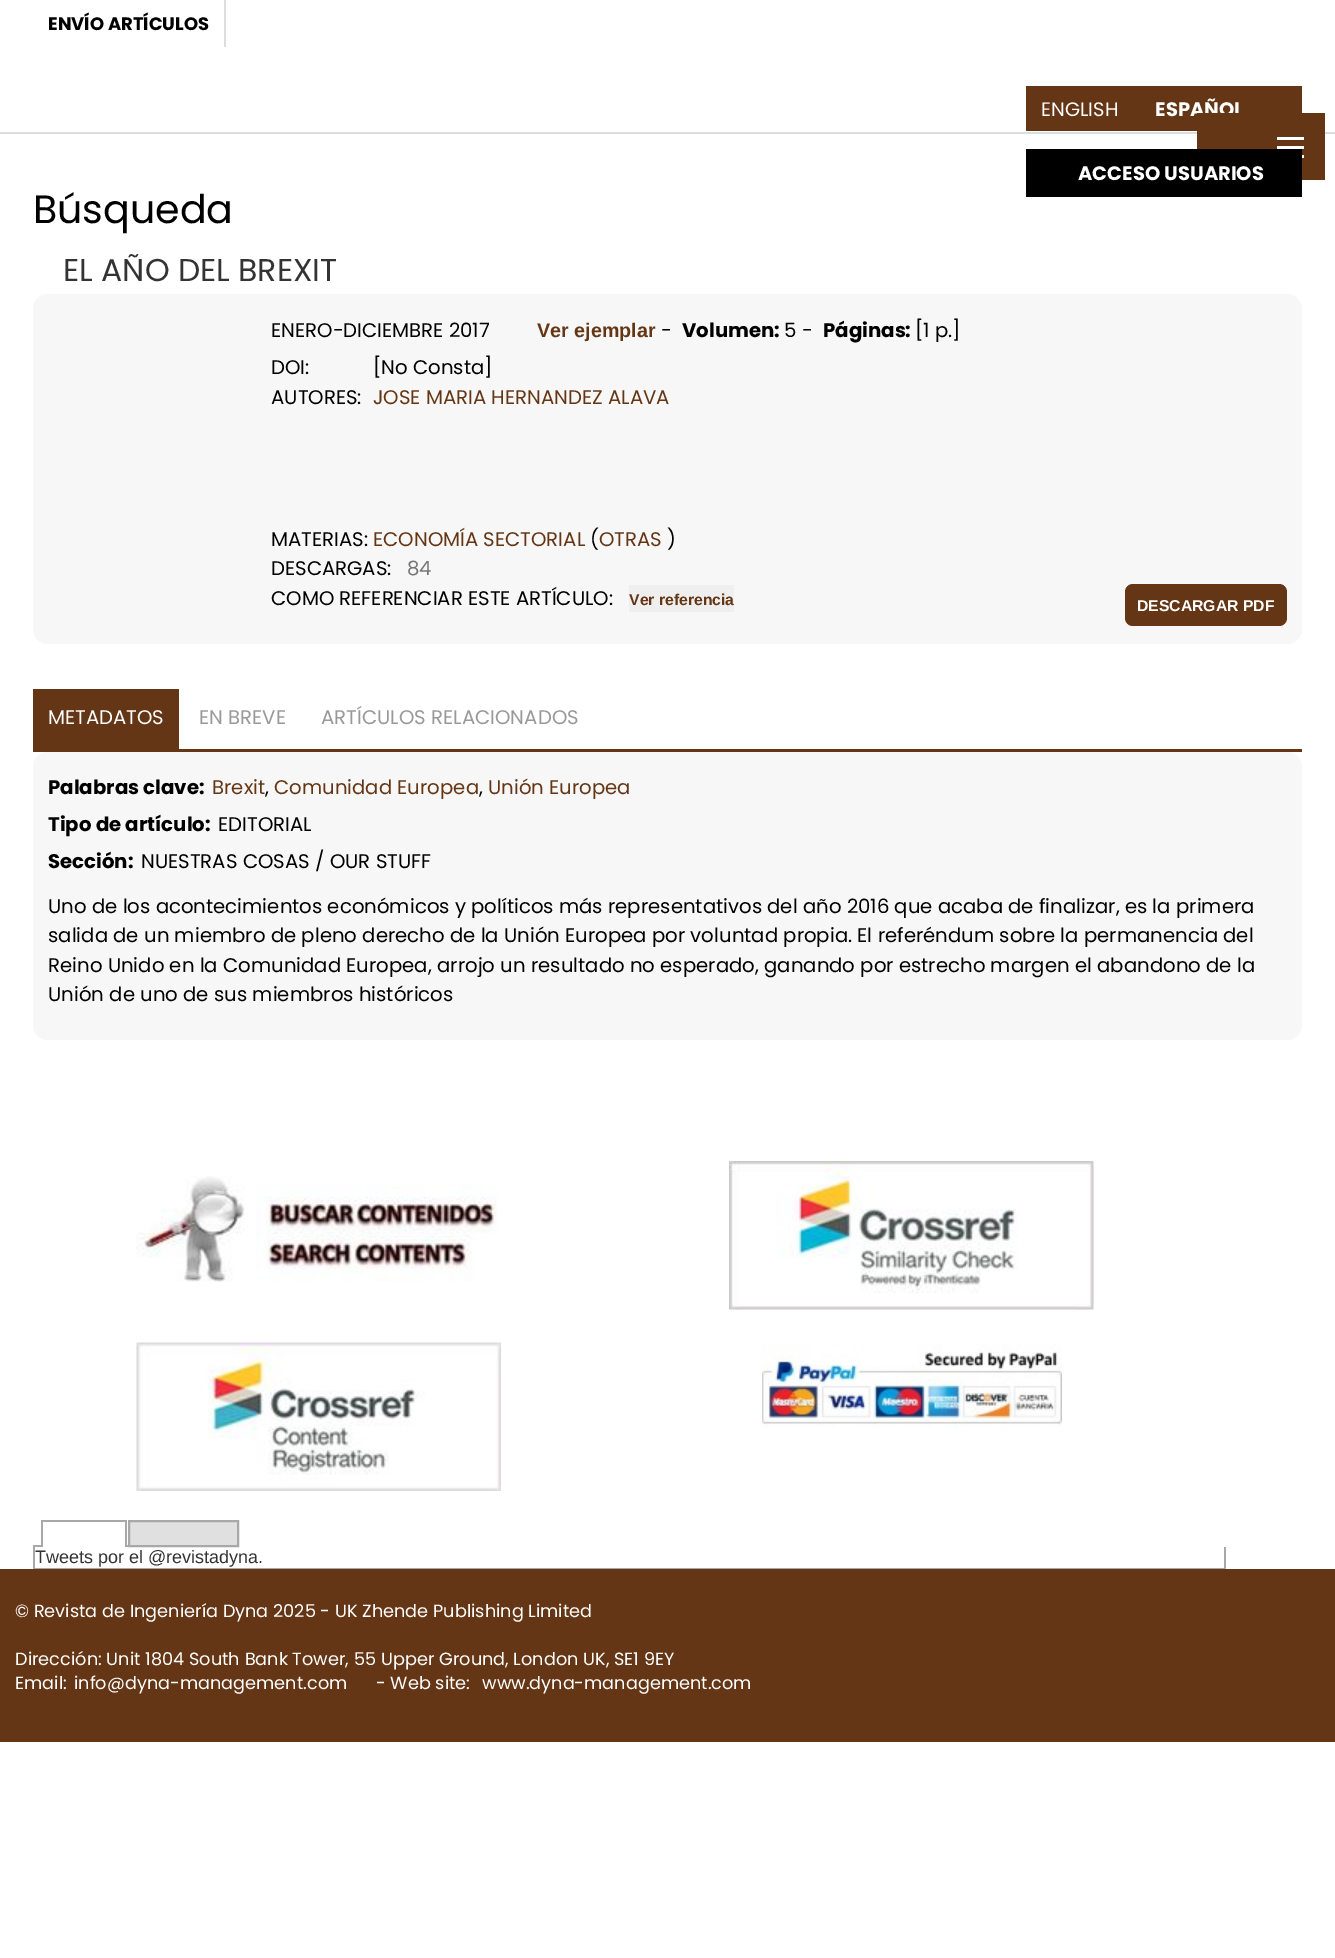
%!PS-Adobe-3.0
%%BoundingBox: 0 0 1335 1958
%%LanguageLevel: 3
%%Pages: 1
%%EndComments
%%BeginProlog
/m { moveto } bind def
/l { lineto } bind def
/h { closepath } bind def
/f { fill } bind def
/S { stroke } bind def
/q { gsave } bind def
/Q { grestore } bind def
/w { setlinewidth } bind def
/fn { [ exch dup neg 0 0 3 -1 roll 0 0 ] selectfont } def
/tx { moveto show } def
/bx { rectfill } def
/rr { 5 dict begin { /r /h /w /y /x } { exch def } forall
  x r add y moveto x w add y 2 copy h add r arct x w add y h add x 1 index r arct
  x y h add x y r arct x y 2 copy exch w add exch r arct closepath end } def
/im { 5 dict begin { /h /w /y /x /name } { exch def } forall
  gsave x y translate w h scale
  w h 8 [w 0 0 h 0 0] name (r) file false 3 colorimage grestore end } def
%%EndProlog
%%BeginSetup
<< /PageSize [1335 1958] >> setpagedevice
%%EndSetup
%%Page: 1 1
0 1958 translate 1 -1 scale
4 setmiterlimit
1 setgray
0 0 1335 1958 bx
0.867 setgray
0 132 1335 2 bx
224 0 2 47 bx
/Poppins-Bold 18 fn
0 setgray
(ENVÍO ARTÍCULOS) 48 30 tx
0.396 0.212 0.082 setrgbcolor
1026 86 276 45 bx
/Poppins-Regular 19.5 fn
1 setgray
(ENGLISH) 1041 116 tx
/Poppins-Bold 19.5 fn
(ESPAÑOL) 1155 116 tx
0.396 0.212 0.082 setrgbcolor
1197 113 128 67 bx
0 setgray
1026 149 276 48 bx
1 setgray
(ACCESO USUARIOS) 1078 180 tx
/Poppins-Regular 39.5 fn
0 setgray
(Búsqueda) 33 223 tx
/Poppins-Regular 31.5 fn
0.2 setgray
(EL AÑO DEL BREXIT) 63 281 tx
0.969 setgray
33 294 1269 350 15 rr f
/Poppins-Regular 19.7 fn
0 setgray
(ENERO-DICIEMBRE 2017) 271 337 tx
/LiberationSans-Bold 19.7 fn
0.396 0.212 0.082 setrgbcolor
(Ver ejemplar) 537 337 tx
/Poppins-Regular 19.7 fn
0 setgray
(-) 661 337 tx
/Poppins-Bold 19.7 fn
(Volumen:) 682 337 tx
/Poppins-Regular 19.7 fn
(5 -) 784 337 tx
/Poppins-Bold 19.7 fn
(Páginas:) 823 337 tx
/Poppins-Regular 19.7 fn
([1 p.]) 915 337 tx
(DOI:) 271 374 tx
([No Consta]) 373 374 tx
(AUTORES:) 271 404 tx
0.396 0.212 0.082 setrgbcolor
(JOSE MARIA HERNANDEZ ALAVA) 373 404 tx
0 setgray
(MATERIAS:) 271 546 tx
0.396 0.212 0.082 setrgbcolor
(ECONOMÍA SECTORIAL) 373 546 tx
0 setgray
(\() 590 546 tx
0.396 0.212 0.082 setrgbcolor
(OTRAS) 599 546 tx
0 setgray
(\)) 667 546 tx
(DESCARGAS:) 271 575 tx
0.463 0.459 0.459 setrgbcolor
(84) 407 575 tx
0 setgray
(COMO REFERENCIAR ESTE ARTÍCULO) 271 605 tx
(:) 609 605 tx
0.937 setgray
629 585 105 27 bx
/LiberationSans-Bold 15.75 fn
0.396 0.212 0.082 setrgbcolor
(Ver referencia) 629 605 tx
1125 584 162 42 8 rr f
1 setgray
(DESCARGAR PDF) 1137 611 tx
0.396 0.212 0.082 setrgbcolor
33 749 1269 3 bx
33 689 146 60 bx
/Poppins-Regular 19.7 fn
1 setgray
(METADATOS) 48 724 tx
0.6 setgray
(EN BREVE) 199 724 tx
(ARTÍCULOS RELACIONADOS) 321 724 tx
0.969 setgray
33 752 1269 288 15 rr f
/Poppins-Bold 19.7 fn
0 setgray
(Palabras clave:) 48 794 tx
/Poppins-Regular 19.7 fn
0.396 0.212 0.082 setrgbcolor
(Brexit) 212 794 tx
0 setgray
(,) 265 794 tx
0.396 0.212 0.082 setrgbcolor
(Comunidad Europea) 274 794 tx
0 setgray
(,) 479 794 tx
0.396 0.212 0.082 setrgbcolor
(Unión Europea) 488 794 tx
/Poppins-Bold 19.7 fn
0 setgray
(Tipo de artículo:) 48 831 tx
/Poppins-Regular 19.7 fn
(EDITORIAL) 218 831 tx
/Poppins-Bold 19.7 fn
(Sección:) 48 868 tx
/Poppins-Regular 19.7 fn
(NUESTRAS COSAS / OUR STUFF) 141 868 tx
(Uno de los acontecimientos económicos y políticos más representativos del año 2016 que acaba de finalizar, es la primera) 48 913 tx
(salida de un miembro de pleno derecho de la Unión Europea por voluntad propia. El referéndum sobre la permanencia del) 48 942 tx
(Reino Unido en la Comunidad Europea, arrojo un resultado no esperado, ganando por estrecho margen el abandono de la) 48 972 tx
(Unión de uno de sus miembros históricos) 48 1001 tx
(image0.raw) 136 1176 361 106 im
(image1.raw) 729 1161 365 149 im
(image2.raw) 136 1342 365 149 im
(image3.raw) 762 1344 300 84 im
0.659 setgray
33 1545 8 2 bx
41 1520 85 2 bx
125 1520 2 27 bx
41 1520 2 27 bx
0.878 setgray
129 1521 m 238 1521 l 238 1546 l 129 1546 l h q f Q
0.659 setgray
2 w
S
126 1545 2 2 bx
1224 1547 2 22 bx
33 1568 1193 1 bx
33 1547 2 22 bx
/LiberationSans-Regular 18 fn
0.2 setgray
(Tweets por el @revistadyna.) 35 1563 tx
1 setgray
1302 155 2 3 bx
1277 146 27 3 bx
1277 137 27 3 bx
0.396 0.212 0.082 setrgbcolor
0 1569 1335 173 bx
/Poppins-Regular 17.7 fn
1 setgray
(© Revista de Ingeniería Dyna 2025 - UK Zhende Publishing Limited) 15 1617 tx
(Dirección: Unit 1804 South Bank Tower, 55 Upper Ground, London UK, SE1 9EY) 15 1665 tx
(Email:) 15 1689 tx
(info@dyna-management.com) 74 1689 tx
(- Web site:) 376 1689 tx
(www.dyna-management.com) 482 1689 tx
showpage
%%EOF
